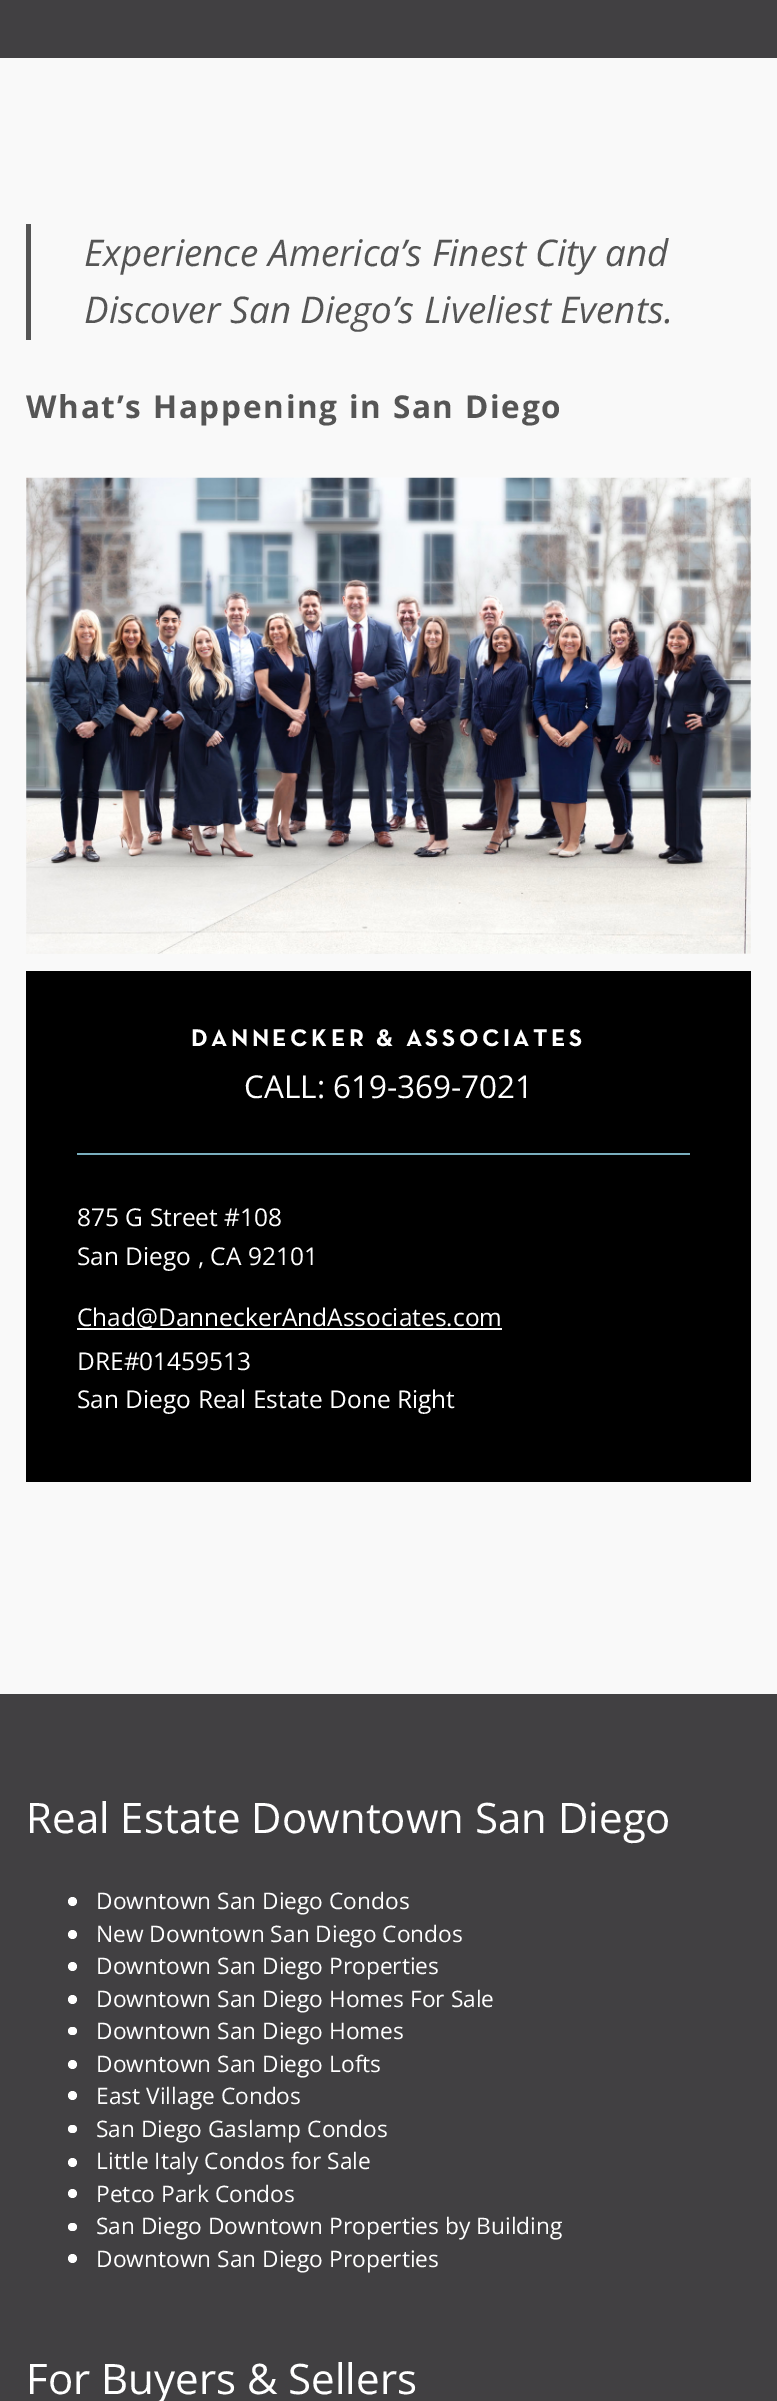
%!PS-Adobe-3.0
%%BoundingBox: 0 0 777 2401
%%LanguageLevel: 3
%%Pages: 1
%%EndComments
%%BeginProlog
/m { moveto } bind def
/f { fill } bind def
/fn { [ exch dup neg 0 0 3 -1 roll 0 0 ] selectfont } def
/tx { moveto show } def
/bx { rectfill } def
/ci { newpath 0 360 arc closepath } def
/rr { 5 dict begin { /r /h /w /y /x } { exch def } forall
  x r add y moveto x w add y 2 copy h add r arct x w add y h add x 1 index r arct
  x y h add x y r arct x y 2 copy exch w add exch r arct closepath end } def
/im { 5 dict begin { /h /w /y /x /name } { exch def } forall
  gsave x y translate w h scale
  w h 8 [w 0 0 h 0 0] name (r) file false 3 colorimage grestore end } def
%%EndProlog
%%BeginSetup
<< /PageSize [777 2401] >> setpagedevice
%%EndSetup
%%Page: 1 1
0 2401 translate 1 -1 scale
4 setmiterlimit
0.255 0.251 0.259 setrgbcolor
0 0 777 2401 bx
0.976 setgray
0 58 777 1636 bx
0.333 setgray
26 224 5 116 bx
/OpenSans-Italic 36.75 fn
(Experience America’s Finest City and) 84 266 tx
(Discover San Diego’s Liveliest Events.) 84 323 tx
/OpenSans-Bold 31.5 fn
26 418 m 1.75 0 (What’s Happening in San Diego) ashow
(image0.raw) 26 477 725 477 im
0 setgray
26 971 725 511 bx
/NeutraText-Bold 24.5 fn
1 setgray
191 1046 m 3.5 0 (DANNECKER & ASSOCIATES) ashow
/OpenSans-Regular 31.5 fn
(CALL: 619-369-7021) 244 1098 tx
0.475 0.682 0.745 setrgbcolor
77 1153 613 2 bx
/OpenSans-Regular 24.5 fn
1 setgray
(875 G Street #108) 77 1226 tx
(San Diego , CA 92101) 77 1265 tx
77 1328 425 2 bx
(Chad@DanneckerAndAssociates.com) 77 1326 tx
(DRE#01459513) 77 1370 tx
(San Diego Real Estate Done Right) 77 1408 tx
/OpenSans-Regular 42 fn
(Real Estate Downtown San Diego) 26 1833 tx
72.5 1901.5 4.5 ci f
/OpenSans-Regular 22.75 fn
(Downtown San Diego Condos) 96 1909 tx
72.5 1934.5 4.5 ci f
(New Downtown San Diego Condos) 96 1942 tx
72.5 1966.5 4.5 ci f
(Downtown San Diego Properties) 96 1974 tx
72.5 1999.5 4.5 ci f
(Downtown San Diego Homes For Sale) 96 2007 tx
68 2027 9 8 4 rr f
(Downtown San Diego Homes) 96 2039 tx
72.5 2064.5 4.5 ci f
(Downtown San Diego Lofts) 96 2072 tx
72.5 2095.5 4.5 ci f
(East Village Condos) 96 2104 tx
68 2125 9 8 4 rr f
(San Diego Gaslamp Condos) 96 2137 tx
72.5 2162.5 4.5 ci f
(Little Italy Condos for Sale) 96 2169 tx
72.5 2193.5 4.5 ci f
(Petco Park Condos) 96 2202 tx
68 2223 9 8 4 rr f
(San Diego Downtown Properties by Building) 96 2234 tx
72.5 2258.5 4.5 ci f
(Downtown San Diego Properties) 96 2267 tx
/OpenSans-Regular 42 fn
(For Buyers & Sellers) 26 2394 tx
showpage
%%EOF
